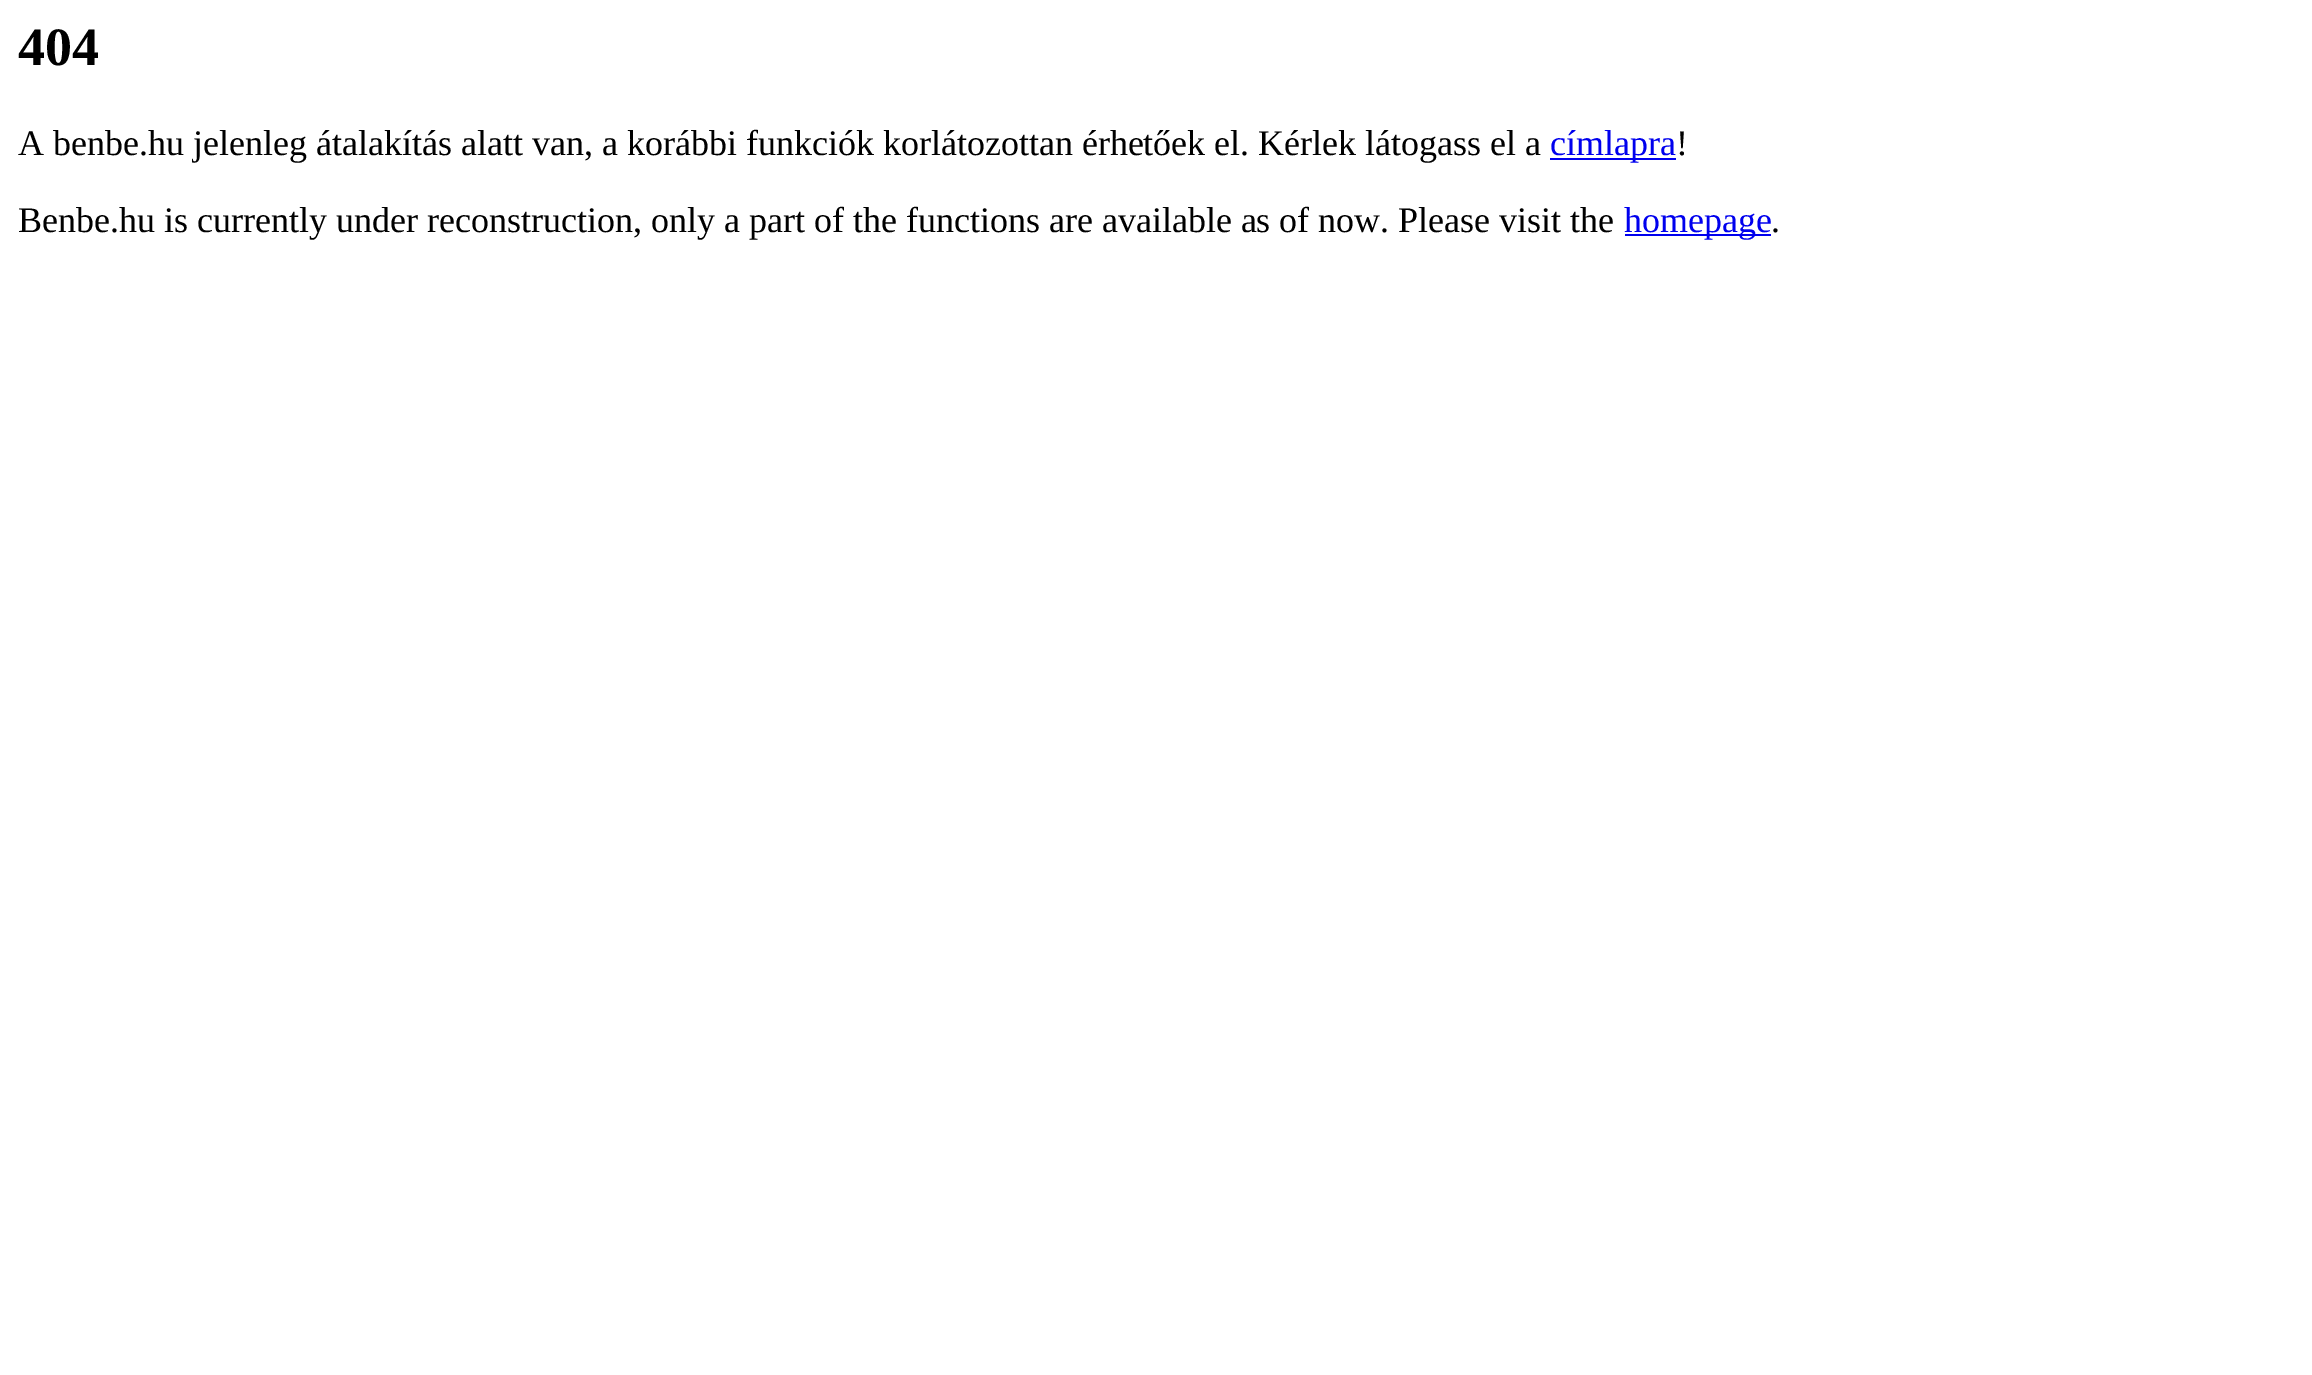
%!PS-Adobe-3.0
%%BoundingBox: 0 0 2312 1375
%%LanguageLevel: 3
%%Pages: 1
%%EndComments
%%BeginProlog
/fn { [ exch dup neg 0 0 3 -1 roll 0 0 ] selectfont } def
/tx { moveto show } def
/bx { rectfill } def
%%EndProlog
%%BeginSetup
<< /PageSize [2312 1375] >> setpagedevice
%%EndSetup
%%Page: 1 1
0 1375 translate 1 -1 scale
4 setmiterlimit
1 setgray
0 0 2312 1375 bx
/LiberationSerif-Bold 54 fn
0 setgray
(404) 18 65 tx
/LiberationSerif-Regular 36 fn
(A benbe.hu jelenleg átalakítás alatt van, a korábbi funkciók korlátozottan érhetőek el. Kérlek látogass el a) 18 155 tx
0 0 0.933 setrgbcolor
1550 158 126 2 bx
(címlapra) 1550 155 tx
0 setgray
(!) 1676 155 tx
(Benbe.hu is currently under reconstruction, only a part of the functions are available as of now. Please visit the) 18 232 tx
0 0 0.933 setrgbcolor
1625 234 146 2 bx
(homepage) 1624 232 tx
0 setgray
(.) 1771 232 tx
showpage
%%EOF
